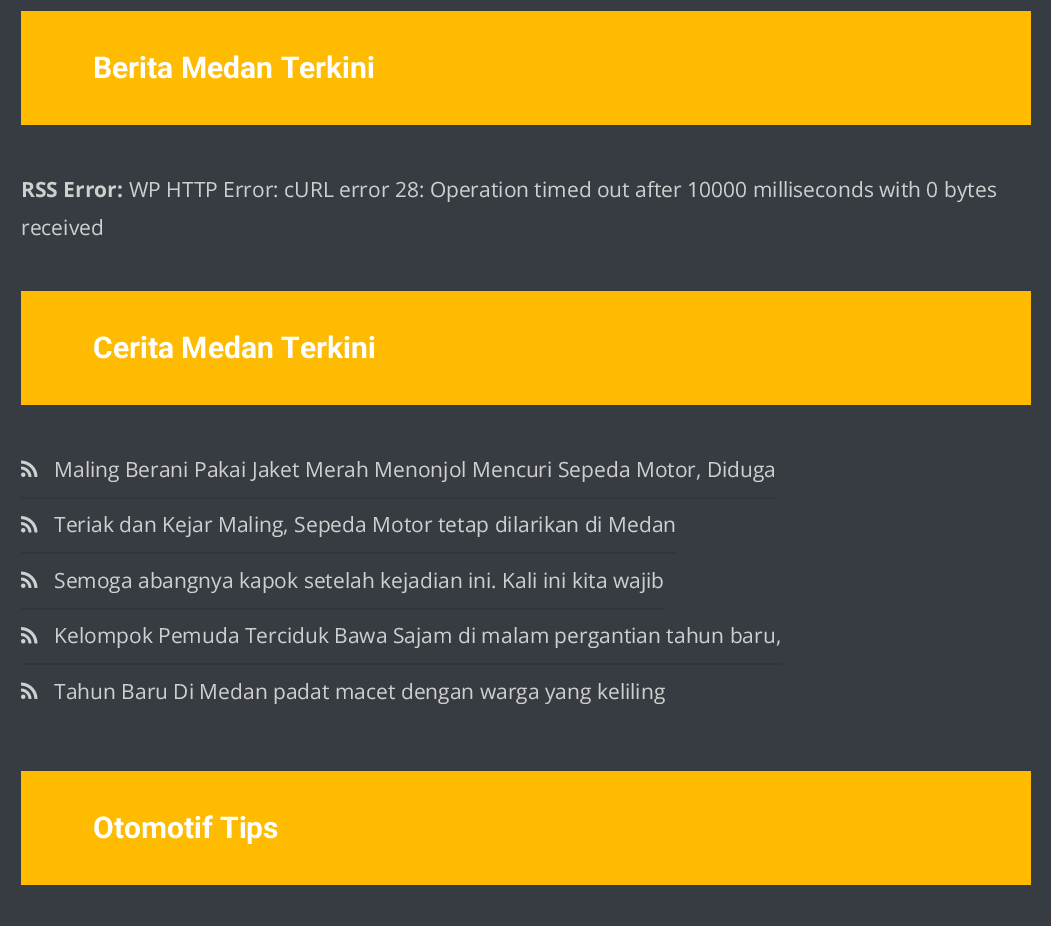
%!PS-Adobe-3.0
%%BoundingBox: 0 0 1051 926
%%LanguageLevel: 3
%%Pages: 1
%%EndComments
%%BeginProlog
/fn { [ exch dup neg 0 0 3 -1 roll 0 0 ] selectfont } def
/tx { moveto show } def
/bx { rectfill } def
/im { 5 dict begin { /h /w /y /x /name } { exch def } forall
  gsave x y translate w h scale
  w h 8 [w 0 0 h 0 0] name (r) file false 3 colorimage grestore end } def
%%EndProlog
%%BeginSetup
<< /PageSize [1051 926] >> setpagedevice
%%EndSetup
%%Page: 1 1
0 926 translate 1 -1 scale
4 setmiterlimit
0.216 0.235 0.259 setrgbcolor
0 0 1051 926 bx
1 0.733 0 setrgbcolor
21 11 1010 114 bx
/Roboto-Bold 30 fn
1 setgray
(Berita Medan Terkini) 93 78 tx
/OpenSans-Bold 21 fn
0.812 setgray
(RSS Error:) 21 197 tx
/OpenSans-Regular 21 fn
(WP HTTP Error: cURL error 28: Operation timed out after 10000 milliseconds with 0 bytes) 129 197 tx
(received) 21 235 tx
1 0.733 0.004 setrgbcolor
21 291 1010 114 bx
/Roboto-Bold 30 fn
1 setgray
(Cerita Medan Terkini) 93 358 tx
0.196 0.212 0.231 setrgbcolor
21 497 756 2 bx
(image0.raw) 21 460 17 17 im
/OpenSans-Regular 21 fn
0.812 setgray
(Maling Berani Pakai Jaket Merah Menonjol Mencuri Sepeda Motor, Diduga) 54 477 tx
0.196 0.212 0.231 setrgbcolor
21 552 656 2 bx
(image1.raw) 21 516 17 17 im
0.812 setgray
(Teriak dan Kejar Maling, Sepeda Motor tetap dilarikan di Medan) 54 532 tx
0.196 0.212 0.231 setrgbcolor
21 608 644 2 bx
(image0.raw) 21 571 17 17 im
0.812 setgray
(Semoga abangnya kapok setelah kejadian ini. Kali ini kita wajib) 54 588 tx
0.196 0.212 0.231 setrgbcolor
21 663 761 2 bx
(image1.raw) 21 627 17 17 im
0.812 setgray
(Kelompok Pemuda Terciduk Bawa Sajam di malam pergantian tahun baru,) 54 643 tx
(image0.raw) 21 682 17 17 im
(Tahun Baru Di Medan padat macet dengan warga yang keliling) 54 699 tx
1 0.733 0 setrgbcolor
21 771 1010 114 bx
/Roboto-Bold 30 fn
1 setgray
(Otomotif Tips) 93 838 tx
showpage
%%EOF
